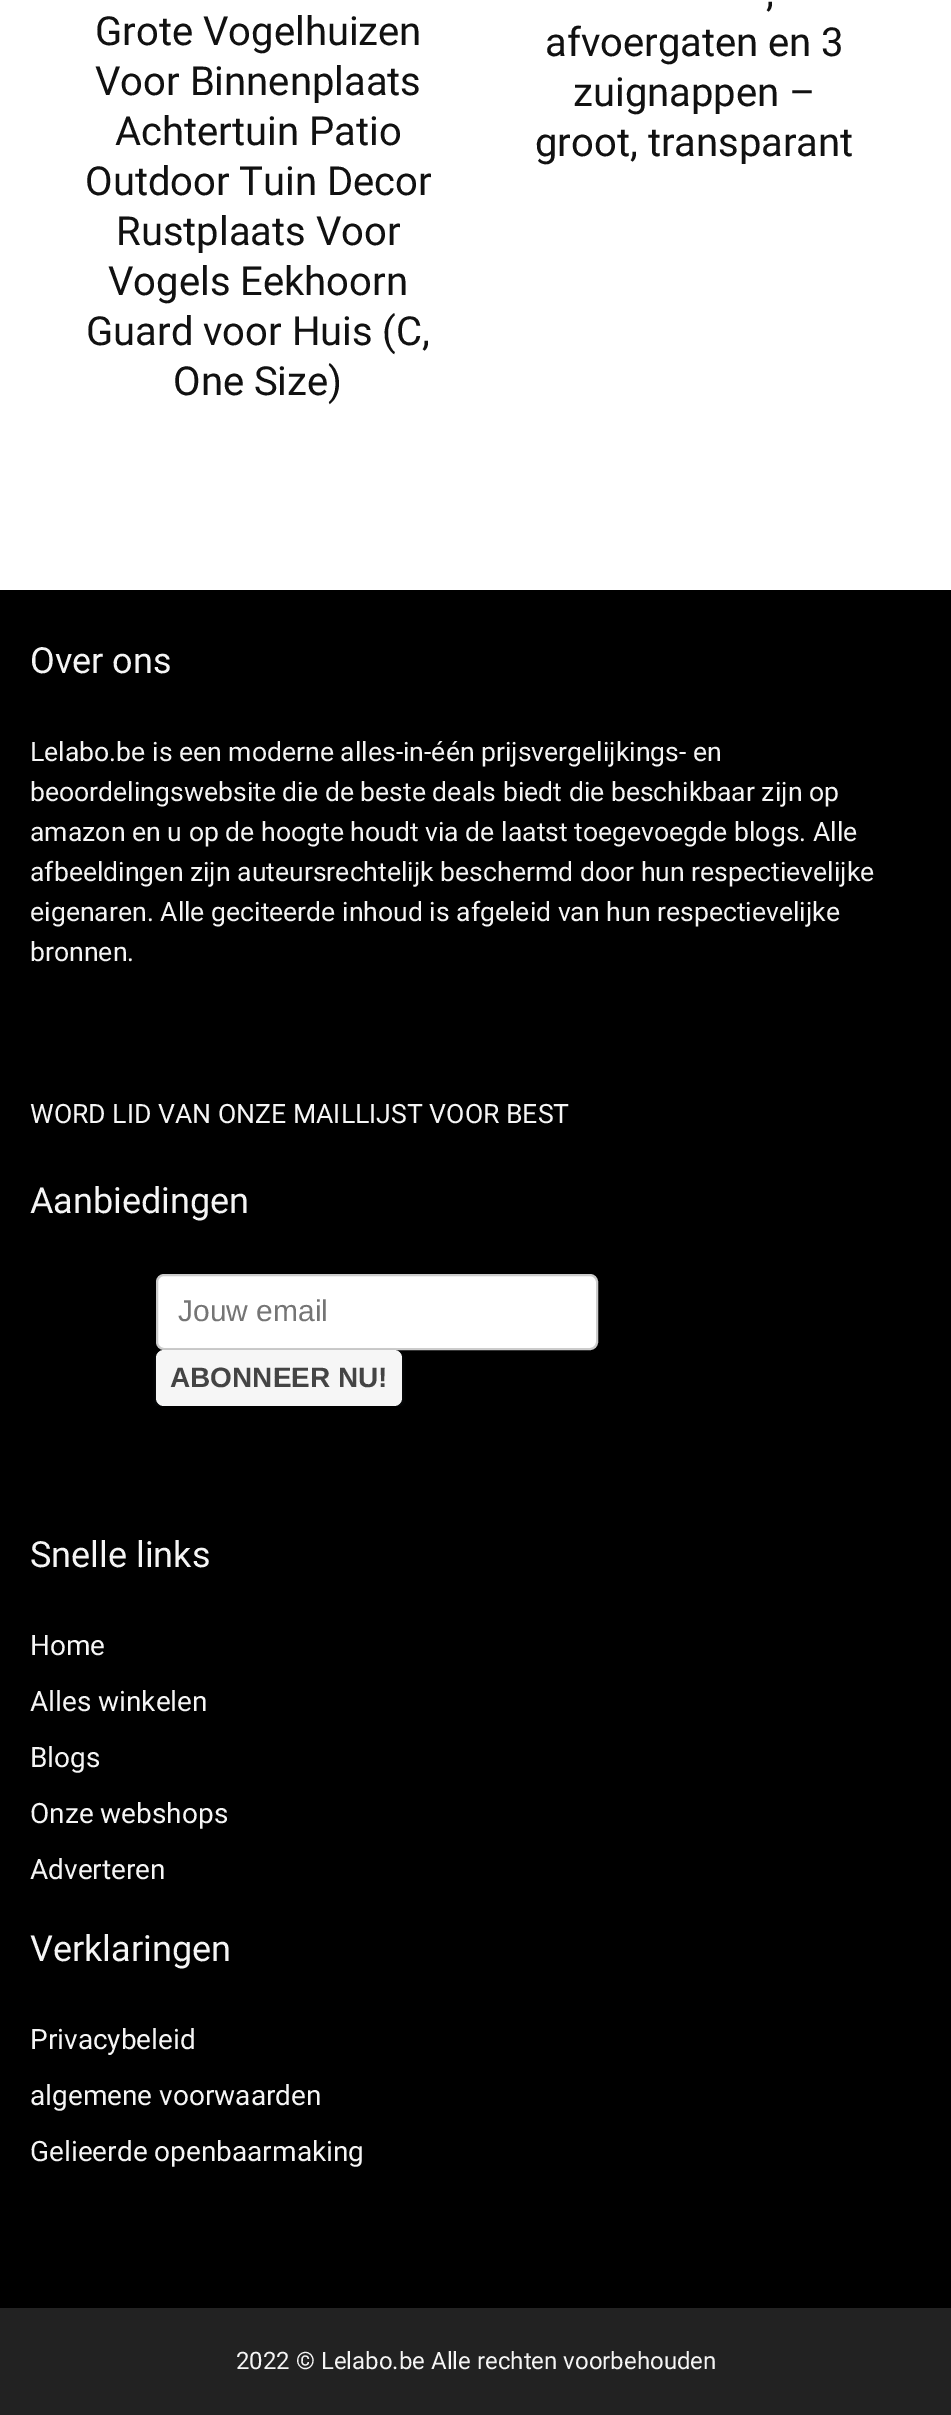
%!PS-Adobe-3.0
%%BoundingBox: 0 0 951 2415
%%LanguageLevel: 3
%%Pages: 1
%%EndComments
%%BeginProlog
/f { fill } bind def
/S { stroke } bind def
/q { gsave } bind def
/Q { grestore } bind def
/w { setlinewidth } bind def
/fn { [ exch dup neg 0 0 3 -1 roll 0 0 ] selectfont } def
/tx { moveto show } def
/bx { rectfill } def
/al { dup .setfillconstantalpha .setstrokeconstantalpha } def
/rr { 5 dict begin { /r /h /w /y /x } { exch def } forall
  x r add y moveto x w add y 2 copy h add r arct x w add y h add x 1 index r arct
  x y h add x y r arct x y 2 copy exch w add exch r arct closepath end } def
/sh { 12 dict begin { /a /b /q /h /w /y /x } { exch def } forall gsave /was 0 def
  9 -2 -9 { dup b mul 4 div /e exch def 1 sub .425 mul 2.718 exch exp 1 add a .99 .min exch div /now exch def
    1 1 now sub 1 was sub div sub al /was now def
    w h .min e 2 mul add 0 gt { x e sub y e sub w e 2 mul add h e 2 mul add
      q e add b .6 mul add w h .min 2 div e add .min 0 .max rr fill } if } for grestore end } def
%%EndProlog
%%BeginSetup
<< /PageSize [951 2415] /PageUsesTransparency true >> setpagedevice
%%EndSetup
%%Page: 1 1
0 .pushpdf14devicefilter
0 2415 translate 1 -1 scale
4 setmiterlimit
1 setgray
0 0 951 2415 bx
/Roboto-Regular 40 fn
0.067 setgray
(Grote Vogelhuizen) 95 45 tx
(Voor Binnenplaats) 95 95 tx
(Achtertuin Patio) 115 145 tx
(Outdoor Tuin Decor) 85 195 tx
(Rustplaats Voor) 116 245 tx
(Vogels Eekhoorn) 108 295 tx
(Guard voor Huis \(C,) 86 345 tx
(One Size\)) 173 395 tx
(,) 766 6 tx
(afvoergaten en 3) 545 56 tx
(zuignappen –) 573 106 tx
(groot, transparant) 535 156 tx
0 setgray
0 590 951 1718 bx
/Roboto-Regular 36 fn
0.961 setgray
(Over ons) 30 673 tx
/Roboto-Regular 26.6 fn
(Lelabo.be is een moderne alles-in-één prijsvergelijkings- en) 30 761 tx
(beoordelingswebsite die de beste deals biedt die beschikbaar zijn op) 30 801 tx
(amazon en u op de hoogte houdt via de laatst toegevoegde blogs. Alle) 30 841 tx
(afbeeldingen zijn auteursrechtelijk beschermd door hun respectievelijke) 30 881 tx
(eigenaren. Alle geciteerde inhoud is afgeleid van hun respectievelijke) 30 921 tx
(bronnen.) 30 961 tx
(WORD LID VAN ONZE MAILLIJST VOOR BEST) 30 1123 tx
/Roboto-Regular 36 fn
(Aanbiedingen) 30 1213 tx
1 setgray
157 1275 440 74 7 rr q f Q
0.8 setgray
2 w
S
/LiberationSans-Regular 30 fn
0.459 setgray
(Jouw email) 178 1321 tx
q
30 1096 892 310 rectclip
0.235 0.251 0.263 setrgbcolor
156 1352 246 56 8 2 0.3 sh
Q
0.965 setgray
156 1350 246 56 8 rr f
/LiberationSans-Bold 28 fn
0.267 setgray
(ABONNEER NU!) 170 1387 tx
/Roboto-Regular 36 fn
0.961 setgray
(Snelle links) 30 1567 tx
/Roboto-Regular 28 fn
(Home) 30 1655 tx
(Alles winkelen) 30 1711 tx
(Blogs) 30 1767 tx
(Onze webshops) 30 1823 tx
(Adverteren) 30 1879 tx
/Roboto-Regular 36 fn
(Verklaringen) 30 1961 tx
/Roboto-Regular 28 fn
(Privacybeleid) 30 2049 tx
(algemene voorwaarden) 30 2105 tx
(Gelieerde openbaarmaking) 30 2161 tx
0.133 setgray
0 2308 951 107 bx
/Roboto-Regular 24 fn
0.961 setgray
(2022 © Lelabo.be Alle rechten voorbehouden) 236 2369 tx
.poppdf14devicefilter showpage
%%EOF
